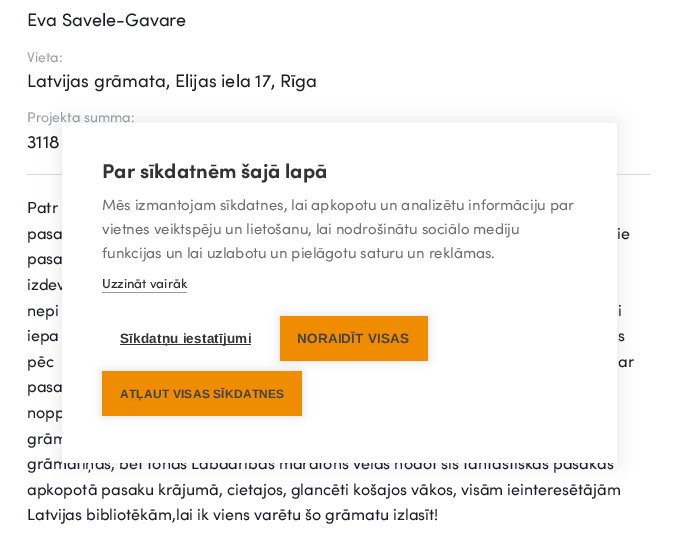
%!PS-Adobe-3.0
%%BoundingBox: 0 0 678 553
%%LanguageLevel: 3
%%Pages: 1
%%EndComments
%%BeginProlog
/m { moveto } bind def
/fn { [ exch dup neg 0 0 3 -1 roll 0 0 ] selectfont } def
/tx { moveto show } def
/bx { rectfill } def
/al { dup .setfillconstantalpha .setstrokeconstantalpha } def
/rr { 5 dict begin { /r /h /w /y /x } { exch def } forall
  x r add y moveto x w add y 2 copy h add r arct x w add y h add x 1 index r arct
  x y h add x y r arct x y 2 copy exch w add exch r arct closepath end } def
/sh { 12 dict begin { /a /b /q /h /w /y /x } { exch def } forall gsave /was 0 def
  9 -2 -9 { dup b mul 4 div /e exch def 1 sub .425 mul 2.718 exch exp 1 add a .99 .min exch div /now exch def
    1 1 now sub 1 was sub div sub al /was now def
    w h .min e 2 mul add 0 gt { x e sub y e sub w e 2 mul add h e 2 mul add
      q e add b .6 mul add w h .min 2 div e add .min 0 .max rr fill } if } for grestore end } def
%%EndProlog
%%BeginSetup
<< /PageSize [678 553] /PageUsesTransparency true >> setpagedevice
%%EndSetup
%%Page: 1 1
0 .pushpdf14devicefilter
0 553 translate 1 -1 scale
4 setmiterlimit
1 setgray
0 0 678 553 bx
0.831 0.855 0.875 setrgbcolor
27 174 624 1 bx
/Sofia-Regular 18 fn
0.11 0.125 0.149 setrgbcolor
(Eva Savele-Gavare) 27 26 tx
/Sofia-Regular 14 fn
0.612 0.631 0.655 setrgbcolor
(Vieta:) 27 62 tx
/Sofia-Regular 18 fn
0.11 0.125 0.149 setrgbcolor
(Latvijas grāmata, Elijas iela 17, Rīga) 27 87 tx
/Sofia-Regular 14 fn
0.612 0.631 0.655 setrgbcolor
(Projekta summa:) 27 122 tx
/Sofia-Regular 18 fn
0.11 0.125 0.149 setrgbcolor
(3118) 27 148 tx
/Sofia-Regular 16 fn
(Patr) 27 213 tx
(pasa) 27 239 tx
(ie) 617 239 tx
(pasa) 27 264 tx
(izdev) 27 290 tx
(nepi) 27 316 tx
(i) 618 316 tx
(iepa) 27 341 tx
(s) 618 341 tx
(pēc) 27 367 tx
(ar) 618 367 tx
(pasa) 27 392 tx
(nopp) 27 418 tx
(grām) 27 444 tx
(grāmatiņas, bet fonds Labdarības maratons vēlas nodot šīs fantastiskās pasakas) 27 469 tx
(apkopotā pasaku krājumā, cietajos, glancēti košajos vākos, visām ieinteresētājām) 27 495 tx
(Latvijas bibliotēkām,lai ik viens varētu šo grāmatu izlasīt!) 27 520 tx
0 setgray
62 123 555 340 0 10 0.1 sh
1 setgray
62 123 555 340 bx
/Sofia-ExtraBold 20 fn
0.2 setgray
(Par sīkdatnēm šajā lapā) 102 178 tx
/Sofia-Regular 15 fn
0.439 setgray
(Mēs izmantojam sīkdatnes, lai apkopotu un analizētu informāciju par) 102 210 tx
(vietnes veiktspēju un lietošanu, lai nodrošinātu sociālo mediju) 102 234 tx
(funkcijas un lai uzlabotu un pielāgotu saturu un reklāmas.) 102 258 tx
/Sofia-Medium 13 fn
0.2 setgray
(Uzzināt vairāk) 102 288 tx
0.6 setgray
102 292 85 1 bx
0.2 setgray
120 344 131 1 bx
/LiberationSans-Bold 13.5 fn
120 343 m 0.2 0 (Sīkdatņu iestatījumi) ashow
0 setgray
280 316 148 45 0 5 0.12 sh
0.941 0.549 0 setrgbcolor
280 316 148 45 bx
0.259 setgray
297 343 m 0.2 0 (NORAIDĪT VISAS) ashow
0 setgray
102 371 200 45 0 5 0.12 sh
0.941 0.549 0 setrgbcolor
102 371 200 45 bx
/LiberationSans-Bold 12 fn
0.259 setgray
120 398 m 0.2 0 (ATĻAUT VISAS SĪKDATNES) ashow
.poppdf14devicefilter showpage
%%EOF
